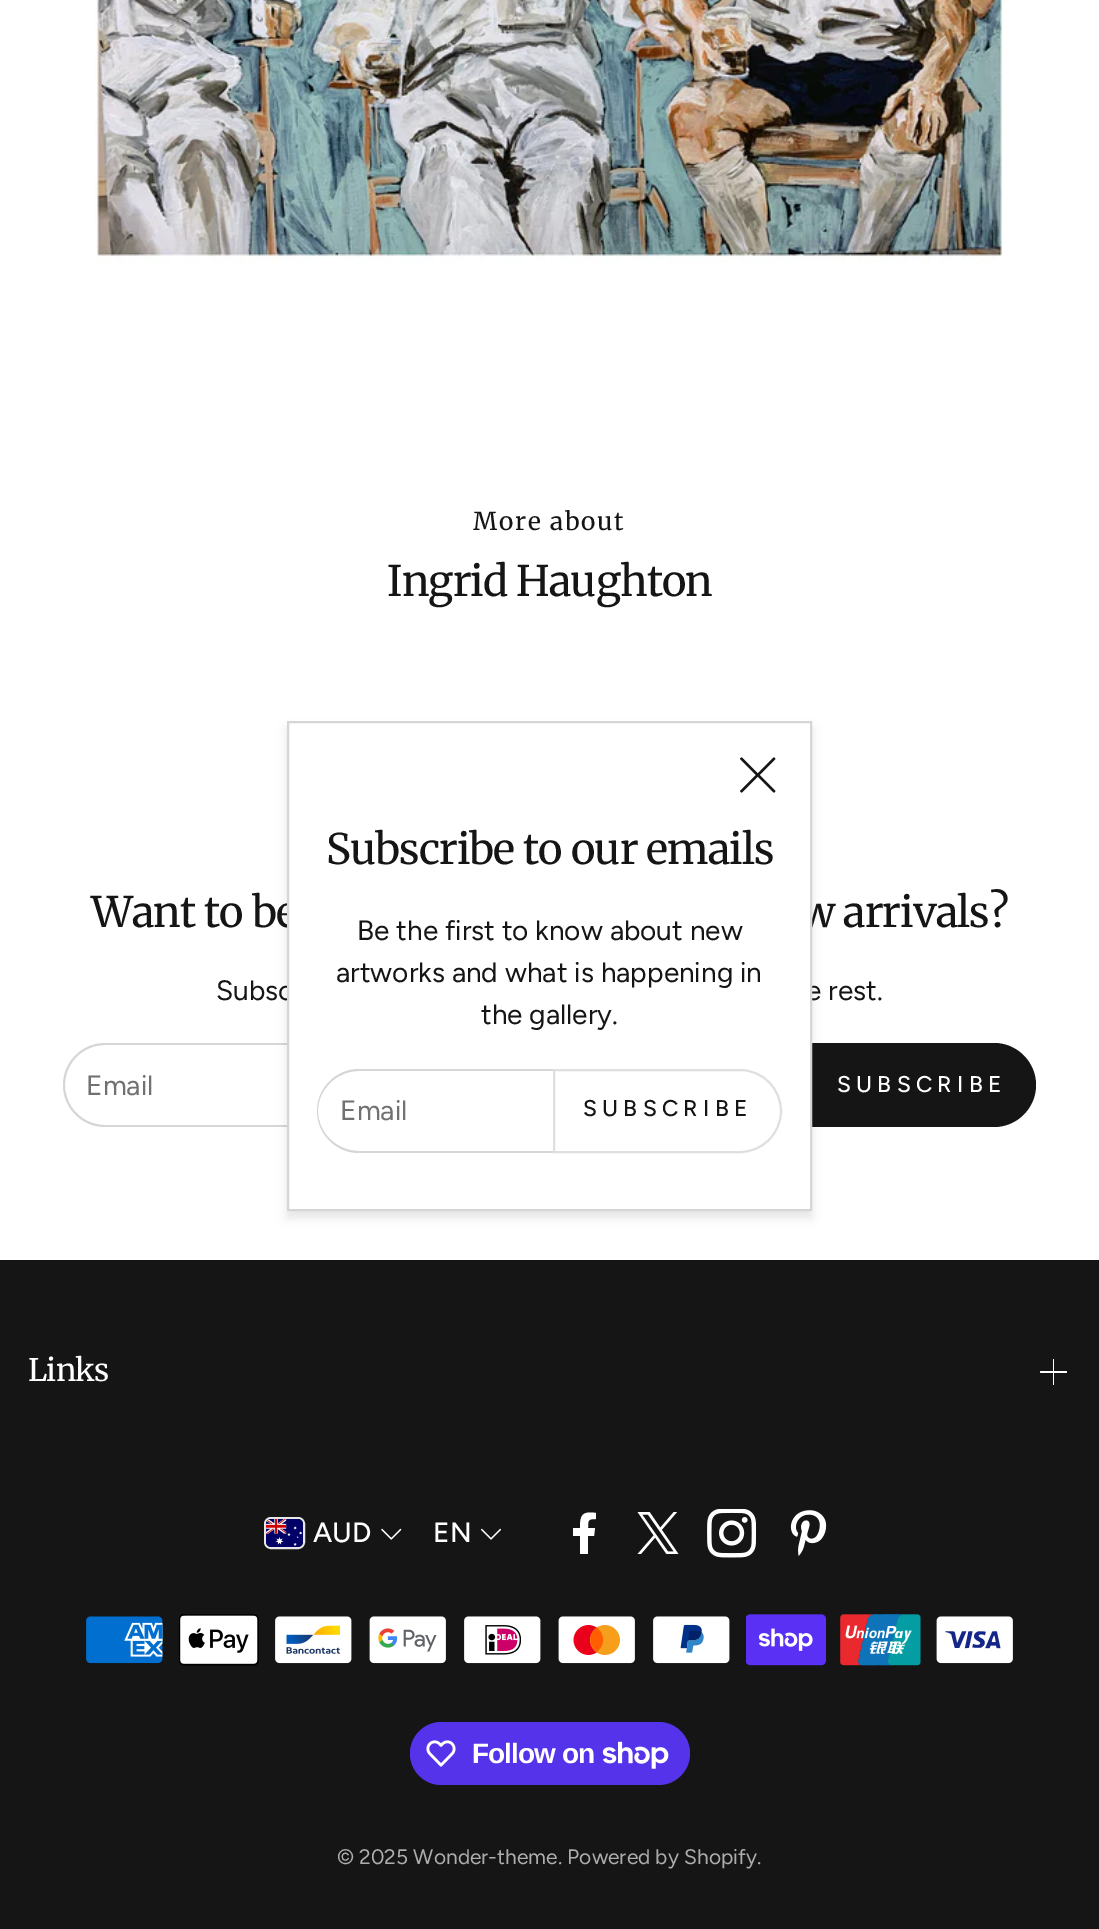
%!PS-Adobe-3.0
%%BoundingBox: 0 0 1099 1929
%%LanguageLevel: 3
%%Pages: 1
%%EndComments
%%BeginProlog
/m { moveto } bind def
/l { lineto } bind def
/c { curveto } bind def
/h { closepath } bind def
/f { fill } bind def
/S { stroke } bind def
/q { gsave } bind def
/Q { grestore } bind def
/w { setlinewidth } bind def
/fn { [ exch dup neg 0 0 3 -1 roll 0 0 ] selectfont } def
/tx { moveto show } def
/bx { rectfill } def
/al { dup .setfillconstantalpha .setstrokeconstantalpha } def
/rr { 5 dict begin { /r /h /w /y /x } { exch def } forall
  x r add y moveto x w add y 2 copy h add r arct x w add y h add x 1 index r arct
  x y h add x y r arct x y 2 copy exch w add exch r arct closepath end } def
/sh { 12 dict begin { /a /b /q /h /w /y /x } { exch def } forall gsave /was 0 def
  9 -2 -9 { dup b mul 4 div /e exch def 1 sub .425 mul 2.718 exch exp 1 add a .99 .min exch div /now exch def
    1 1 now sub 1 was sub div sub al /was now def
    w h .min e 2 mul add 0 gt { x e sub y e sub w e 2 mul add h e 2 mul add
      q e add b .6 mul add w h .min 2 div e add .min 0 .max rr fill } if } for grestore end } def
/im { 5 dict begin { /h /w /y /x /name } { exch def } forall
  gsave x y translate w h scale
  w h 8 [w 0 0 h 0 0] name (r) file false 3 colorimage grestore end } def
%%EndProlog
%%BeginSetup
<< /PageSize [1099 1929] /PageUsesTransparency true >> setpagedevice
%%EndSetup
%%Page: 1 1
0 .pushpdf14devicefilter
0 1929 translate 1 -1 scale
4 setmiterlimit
1 setgray
0 0 1099 1929 bx
(image0.raw) 95 0 911 263 im
/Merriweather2-Regular 24.5 fn
0.082 setgray
473 530 m 1.75 0 (More about) ashow
/Merriweather-Regular 42 fn
387 596 m -0.9 0 (Ingrid Haughton) ashow
91 927 m -0.9 0 (Want to be) ashow
800 927 m -0.9 0 (w arrivals?) ashow
/Figtree-Regular 28 fn
(Subsc) 216 1000 tx
(e rest.) 806 1000 tx
0.839 setgray
105 1043 m 807 1043 l 807 1127 l 105 1127 l 82 1127 63 1108 63 1085 c 63 1062 82 1043 105 1043 c h 105 1045 m 807 1045 l 807 1125 l 105 1125 l 83 1125 65 1107 65 1085 c 65 1063 83 1045 105 1045 c h eofill
0.443 setgray
(Email) 86 1095 tx
0.082 setgray
807 1043 m 994 1043 l 1017 1043 1036 1062 1036 1085 c 1036 1108 1017 1127 994 1127 c 807 1127 l h f
/Figtree-Medium 22.75 fn
1 setgray
837 1092 m 5.25 0 (SUBSCRIBE) ashow
0 setgray
287 728 525 490 0 5 0.1 sh
1 setgray
288 722 m 811 722 l 811 1210 l 288 1210 l h q f Q
0.839 setgray
2 w
S
(image1.raw) 740 757 36 36 im
/Merriweather-Regular 42 fn
0.082 setgray
326 864 m -0.9 0 (Subscribe to our emails) ashow
/Figtree-Regular 28 fn
(Be the first to know about new) 357 940 tx
(artworks and what is happening in) 336 982 tx
(the gallery.) 481 1024 tx
0.839 setgray
359 1069 m 553 1069 l 553 1153 l 359 1153 l 336 1153 317 1134 317 1111 c 317 1088 336 1069 359 1069 c h 359 1071 m 553 1071 l 553 1151 l 359 1151 l 337 1151 318 1133 318 1111 c 318 1089 337 1071 359 1071 c h eofill
0.443 setgray
(Email) 340 1120 tx
0.875 setgray
554 1070 m 740 1070 l 762.5 1070 781 1088.5 781 1111 c 781 1133.5 762.5 1152 740 1152 c 554 1152 l h S
/Figtree-Medium 22.75 fn
0.082 setgray
583 1116 m 5.25 0 (SUBSCRIBE) ashow
0 1260 1099 669 bx
/Merriweather2-Regular 31 fn
1 setgray
28 1381 m -0.9 0 (Links) ashow
1040 1371 27 2 1 rr f
1053 1359 1 26 0.5 rr f
0.906 setgray
265 1518 39 30 6 rr S
(image2.raw) 266 1519 37 28 im
/Figtree-Medium 28 fn
1 setgray
(AUD) 313 1542 tx
(image3.raw) 381 1528 21 12 im
(EN) 433 1542 tx
(image4.raw) 481 1528 20 12 im
594 1536 m 595 1528 l 588 1528 l 588 1520 588 1519 596 1519 c 596 1513 l 582 1511 580 1515 580 1528 c 573 1528 l 573 1536 l 580 1536 l 580 1554 l 588 1554 l 588 1536 l h f
(image5.raw) 637 1512 42 42 im
(image6.raw) 707 1509 49 49 im
(image7.raw) 790 1510 37 46 im
(image8.raw) 86 1616 77 48 im
(image9.raw) 179 1614 80 52 im
(image10.raw) 275 1616 77 48 im
(image11.raw) 369 1616 77 48 im
(image12.raw) 464 1616 77 48 im
(image13.raw) 558 1616 77 48 im
(image14.raw) 653 1616 77 48 im
(image15.raw) 746 1614 80 52 im
(image16.raw) 840 1614 81 52 im
(image17.raw) 936 1616 77 48 im
0.329 0.2 0.922 setrgbcolor
410 1722 280 63 31.5 rr f
(image18.raw) 426 1740 30 27 im
/LiberationSans-Bold 28 fn
1 setgray
472 1763 m -0.9 0 (Follow on) ashow
(image19.raw) 602 1741 67 28 im
/Figtree-Regular 21 fn
0.678 setgray
(© 2025 Wonder-theme. Powered by Shopify.) 337 1864 tx
.poppdf14devicefilter showpage
%%EOF
